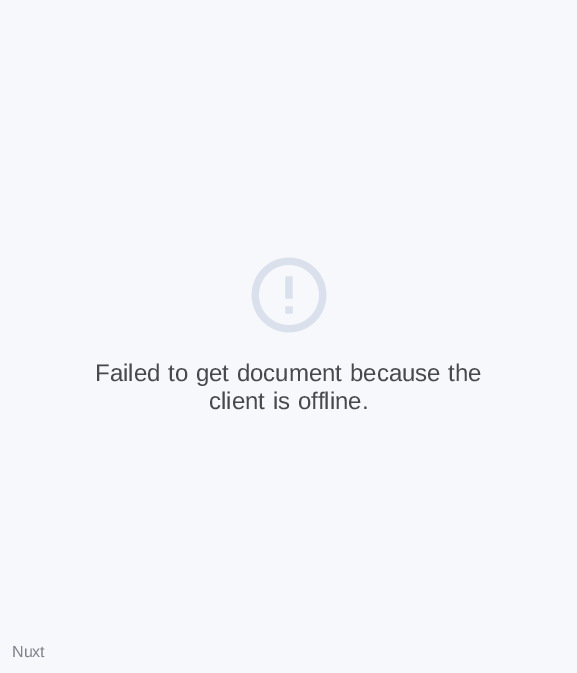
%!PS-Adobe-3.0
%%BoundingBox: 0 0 577 673
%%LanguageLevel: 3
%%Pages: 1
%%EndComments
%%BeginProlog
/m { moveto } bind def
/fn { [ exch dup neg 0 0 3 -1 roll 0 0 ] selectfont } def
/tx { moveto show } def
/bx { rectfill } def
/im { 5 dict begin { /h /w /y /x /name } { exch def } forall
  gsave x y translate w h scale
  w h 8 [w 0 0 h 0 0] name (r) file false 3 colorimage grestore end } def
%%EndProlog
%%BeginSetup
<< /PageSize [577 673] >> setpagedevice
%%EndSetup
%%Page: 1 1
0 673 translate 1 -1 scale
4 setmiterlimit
0.969 0.973 0.984 setrgbcolor
0 0 577 673 bx
(image0.raw) 251 257 76 76 im
/LiberationSans-Regular 24 fn
0.278 0.286 0.306 setrgbcolor
95 381 m 1 0 32 (Failed to get document because the) widthshow
209 409 m 1 0 32 (client is offline.) widthshow
/LiberationSans-Regular 16 fn
0.498 0.51 0.545 setrgbcolor
(Nuxt) 12 657 tx
showpage
%%EOF
